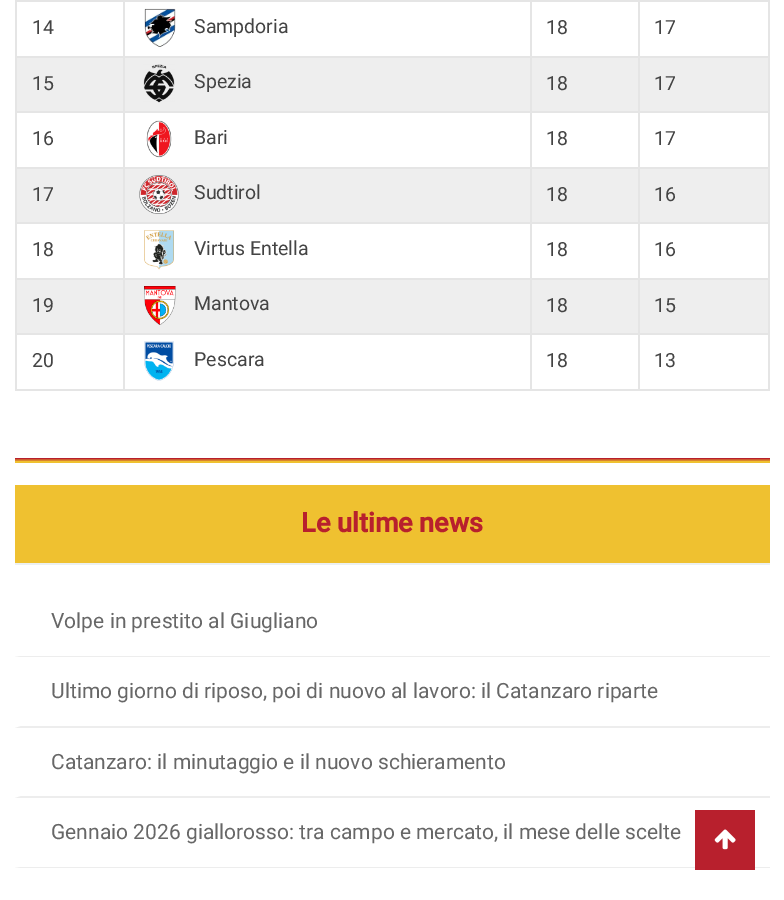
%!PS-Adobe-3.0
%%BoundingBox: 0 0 784 900
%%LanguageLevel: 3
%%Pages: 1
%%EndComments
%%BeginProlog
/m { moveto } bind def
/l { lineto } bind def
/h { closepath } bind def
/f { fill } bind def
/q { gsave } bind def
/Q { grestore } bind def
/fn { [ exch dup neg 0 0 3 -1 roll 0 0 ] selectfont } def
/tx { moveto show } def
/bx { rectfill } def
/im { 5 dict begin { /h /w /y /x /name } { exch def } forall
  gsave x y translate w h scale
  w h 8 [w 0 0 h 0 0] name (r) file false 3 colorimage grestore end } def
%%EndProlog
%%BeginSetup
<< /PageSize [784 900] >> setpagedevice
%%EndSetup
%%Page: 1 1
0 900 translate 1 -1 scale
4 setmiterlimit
1 setgray
0 0 784 900 bx
0.898 setgray
768 0 2 390 bx
15 389 755 2 bx
15 0 2 390 bx
638 0 132 2 bx
638 56 132 2 bx
0.933 setgray
17 58 751 53 bx
0.898 setgray
638 111 132 2 bx
638 167 132 2 bx
0.933 setgray
17 169 751 53 bx
0.898 setgray
638 222 132 2 bx
638 278 132 2 bx
0.933 setgray
17 280 751 53 bx
0.898 setgray
638 333 132 2 bx
638 333 2 57 bx
530 333 109 2 bx
638 278 2 57 bx
530 278 109 2 bx
638 222 2 57 bx
530 222 109 2 bx
638 167 2 57 bx
530 167 109 2 bx
638 111 2 57 bx
530 111 109 2 bx
638 56 2 57 bx
530 56 109 2 bx
638 0 2 57 bx
530 0 109 2 bx
530 333 2 57 bx
123 333 408 2 bx
530 278 2 57 bx
123 278 408 2 bx
530 222 2 57 bx
123 222 408 2 bx
530 167 2 57 bx
123 167 408 2 bx
530 111 2 57 bx
123 111 408 2 bx
530 56 2 57 bx
123 56 408 2 bx
530 0 2 57 bx
123 0 408 2 bx
123 333 2 57 bx
15 333 110 2 bx
123 278 2 57 bx
15 278 110 2 bx
123 222 2 57 bx
15 222 110 2 bx
123 167 2 57 bx
15 167 110 2 bx
123 111 2 57 bx
15 111 110 2 bx
123 56 2 57 bx
15 56 110 2 bx
123 0 2 57 bx
15 0 110 2 bx
/Roboto-Regular 19.5 fn
0.267 setgray
(14) 32 34 tx
(image0.raw) 144 8 32 39 im
(Sampdoria) 194 33 tx
(18) 546 34 tx
(17) 654 34 tx
(15) 32 90 tx
(image1.raw) 143 64 32 39 im
(Spezia) 194 88 tx
(18) 546 90 tx
(17) 654 90 tx
(16) 32 145 tx
(image2.raw) 146 120 26 38 im
(Bari) 194 144 tx
(18) 546 145 tx
(17) 654 145 tx
(17) 32 201 tx
(image3.raw) 139 175 40 39 im
(Sudtirol) 194 199 tx
(18) 546 201 tx
(16) 654 201 tx
(18) 32 256 tx
(image4.raw) 144 230 30 40 im
(Virtus Entella) 194 255 tx
(18) 546 256 tx
(16) 654 256 tx
(19) 32 312 tx
(image5.raw) 144 286 32 39 im
(Mantova) 194 310 tx
(18) 546 312 tx
(15) 654 312 tx
(20) 32 367 tx
(image6.raw) 144 341 30 40 im
(Pescara) 194 366 tx
(18) 546 367 tx
(13) 654 367 tx
q 15 458 m 770 458 l 770 463 l 15 463 l h clip newpath
<< /ShadingType 2 /ColorSpace /DeviceRGB /Coords [392 462 392 458] /Extend [true true] /Function << /FunctionType 2 /Domain [0 1] /C0 [0.937 0.757 0.188] /C1 [0.722 0.125 0.176] /N 1 >> >> shfill Q
0.937 0.757 0.188 setrgbcolor
15 485 755 78 bx
/Roboto-Bold 27 fn
0.722 0.125 0.176 setrgbcolor
(Le ultime news) 301 532 tx
0.925 0.941 0.945 setrgbcolor
15 563 755 2 bx
0.929 setgray
770 657 m 15 657 l 21 656 l 770 656 l h f
/Roboto-Regular 21 fn
0.404 setgray
(Volpe in prestito al Giugliano) 51 628 tx
0.929 setgray
770 728 m 15 728 l 21 726 l 770 726 l h f
0.404 setgray
(Ultimo giorno di riposo, poi di nuovo al lavoro: il Catanzaro riparte) 51 698 tx
0.929 setgray
770 798 m 15 798 l 21 796 l 770 796 l h f
0.404 setgray
(Catanzaro: il minutaggio e il nuovo schieramento) 51 769 tx
0.929 setgray
770 868 m 15 868 l 21 867 l 770 867 l h f
0.404 setgray
(Gennaio 2026 giallorosso: tra campo e mercato, il mese delle scelte) 51 839 tx
0.722 0.125 0.176 setrgbcolor
695 810 60 60 bx
(image7.raw) 714 829 22 21 im
showpage
%%EOF
